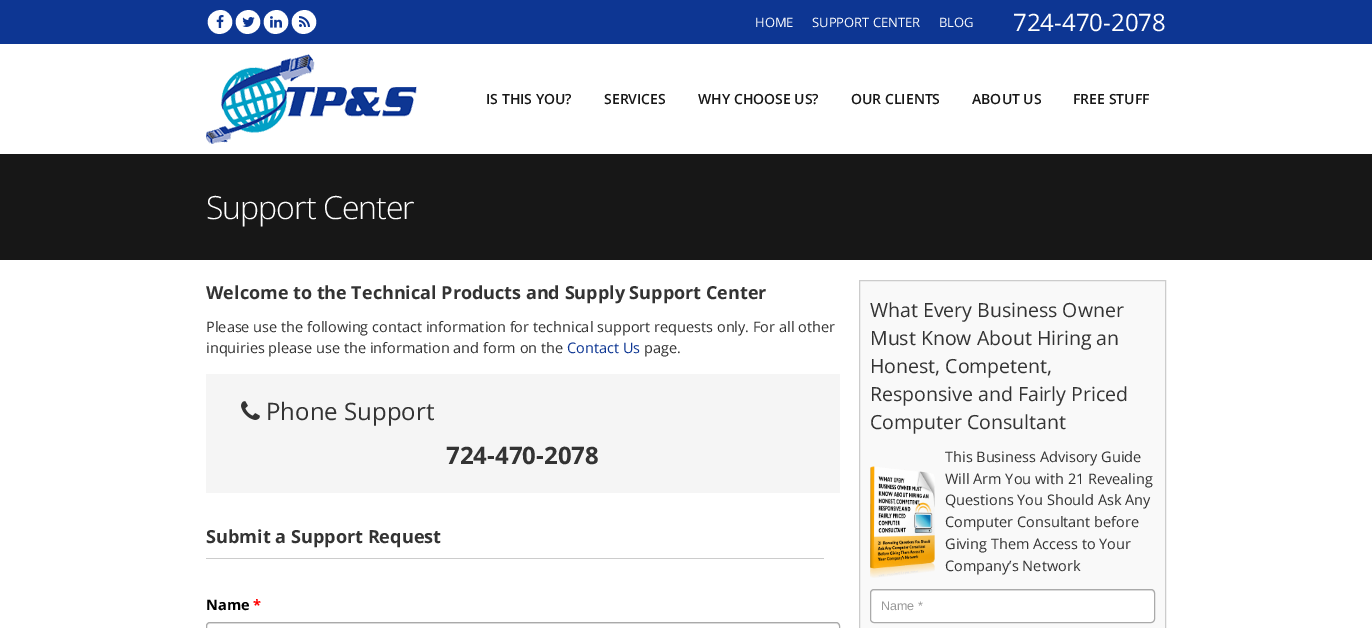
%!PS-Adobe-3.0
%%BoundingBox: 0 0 1372 628
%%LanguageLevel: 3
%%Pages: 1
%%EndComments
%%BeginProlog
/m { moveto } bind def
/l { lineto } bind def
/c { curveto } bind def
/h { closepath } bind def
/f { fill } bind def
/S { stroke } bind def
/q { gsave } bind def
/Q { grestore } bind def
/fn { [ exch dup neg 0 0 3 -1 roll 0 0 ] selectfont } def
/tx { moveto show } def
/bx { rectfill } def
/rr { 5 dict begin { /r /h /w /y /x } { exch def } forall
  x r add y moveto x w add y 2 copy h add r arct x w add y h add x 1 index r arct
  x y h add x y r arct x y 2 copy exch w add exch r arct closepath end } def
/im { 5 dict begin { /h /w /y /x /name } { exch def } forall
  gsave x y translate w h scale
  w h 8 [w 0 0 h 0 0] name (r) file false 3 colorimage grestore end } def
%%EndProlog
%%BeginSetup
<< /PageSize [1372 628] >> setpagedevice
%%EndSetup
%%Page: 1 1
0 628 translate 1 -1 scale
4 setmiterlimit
1 setgray
0 0 1372 628 bx
0.051 0.212 0.576 setrgbcolor
0 0 1372 44 bx
1 setgray
230.5 16 m 238.5 29.5 217.5 41.5 209.5 28 c 201.5 14.5 222.5 2.5 230.5 16 c h f
(image0.raw) 216 15 8 13 im
258.5 16 m 266.5 29.5 245.5 41.5 237.5 28 c 229.5 14.5 250.5 2.5 258.5 16 c h f
(image1.raw) 242 17 13 10 im
286.5 16 m 294.5 29.5 273.5 41.5 265.5 28 c 257.5 14.5 278.5 2.5 286.5 16 c h f
(image2.raw) 270 16 12 12 im
314.5 16 m 322.5 29.5 301.5 41.5 293.5 28 c 285.5 14.5 306.5 2.5 314.5 16 c h f
(image3.raw) 299 16 11 11 im
/OpenSans-Regular 13 fn
(HOME) 755 27 tx
(SUPPORT CENTER) 812 27 tx
(BLOG) 939 27 tx
/OpenSans-Regular 24 fn
(724-470-2078) 1013 31 tx
(image4.raw) 206 54 211 90 im
/OpenSans-SemiBold 14 fn
0.09 setgray
(IS THIS YOU?) 486 104 tx
(SERVICES) 604 104 tx
(WHY CHOOSE US?) 698 104 tx
(OUR CLIENTS) 851 104 tx
(ABOUT US) 972 104 tx
(FREE STUFF) 1073 104 tx
0 154 1372 106 bx
/OpenSans-Light 32 fn
1 setgray
206 219 m -1 0 (Support Center) ashow
/OpenSans-Bold 18 fn
0.2 setgray
(Welcome to the Technical Products and Supply Support Center) 206 299 tx
/OpenSans-Regular 14.5 fn
(Please use the following contact information for technical support requests only. For all other) 206 332 tx
(inquiries please use the information and form on the) 206 353 tx
0.051 0.212 0.576 setrgbcolor
(Contact Us) 567 353 tx
0.2 setgray
(page.) 644 353 tx
0.961 setgray
206 374 634 119 bx
(image5.raw) 241 401 19 19 im
/OpenSans-Regular 24 fn
0.2 setgray
(Phone Support) 266 420 tx
/OpenSans-Bold 24 fn
(724-470-2078) 446 464 tx
0.8 setgray
206 558 618 1 bx
/OpenSans-Bold 18.1 fn
0.2 setgray
(Submit a Support Request) 206 543 tx
/OpenSans-Bold 14.5 fn
0 setgray
(Name) 206 610 tx
1 0 0 setrgbcolor
(*) 253 610 tx
0.925 setgray
210 624 m 836 624 l 838 624 839 625 839 627 c 839 626 l 839 624 838 623 836 623 c 210 623 l 208 623 207 624 207 626 c 207 627 l 207 625 208 624 210 624 c h f
0.667 setgray
206.5 622.5 633 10 3.5 rr S
0.976 setgray
859.5 280.5 m 1165.5 280.5 l 1165.5 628.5 l 859.5 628.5 l h q f Q
0.8 setgray
S
/OpenSans-Regular 19.5 fn
0.2 setgray
(What Every Business Owner) 870 317 tx
(Must Know About Hiring an) 870 345 tx
(Honest, Competent,) 870 373 tx
(Responsive and Fairly Priced) 870 401 tx
(Computer Consultant) 870 429 tx
(image6.raw) 870 466 65 112 im
/OpenSans-Regular 14.5 fn
(This Business Advisory Guide) 945 462 tx
(Will Arm You with 21 Revealing) 945 484 tx
(Questions You Should Ask Any) 945 505 tx
(Computer Consultant before) 945 527 tx
(Giving Them Access to Your) 945 549 tx
(Company’s Network) 945 571 tx
1 setgray
870 589 285 34 4 rr f
0.925 setgray
874 591 m 1151 591 l 1153 591 1154 592 1154 594 c 1154 593 l 1154 591 1153 590 1151 590 c 874 590 l 872 590 871 591 871 593 c 871 594 l 871 592 872 591 874 591 c h f
0.667 setgray
870.5 589.5 284 33 3.5 rr S
/LiberationSans-Regular 12.5 fn
0.6 setgray
(Name *) 881 610 tx
showpage
%%EOF
